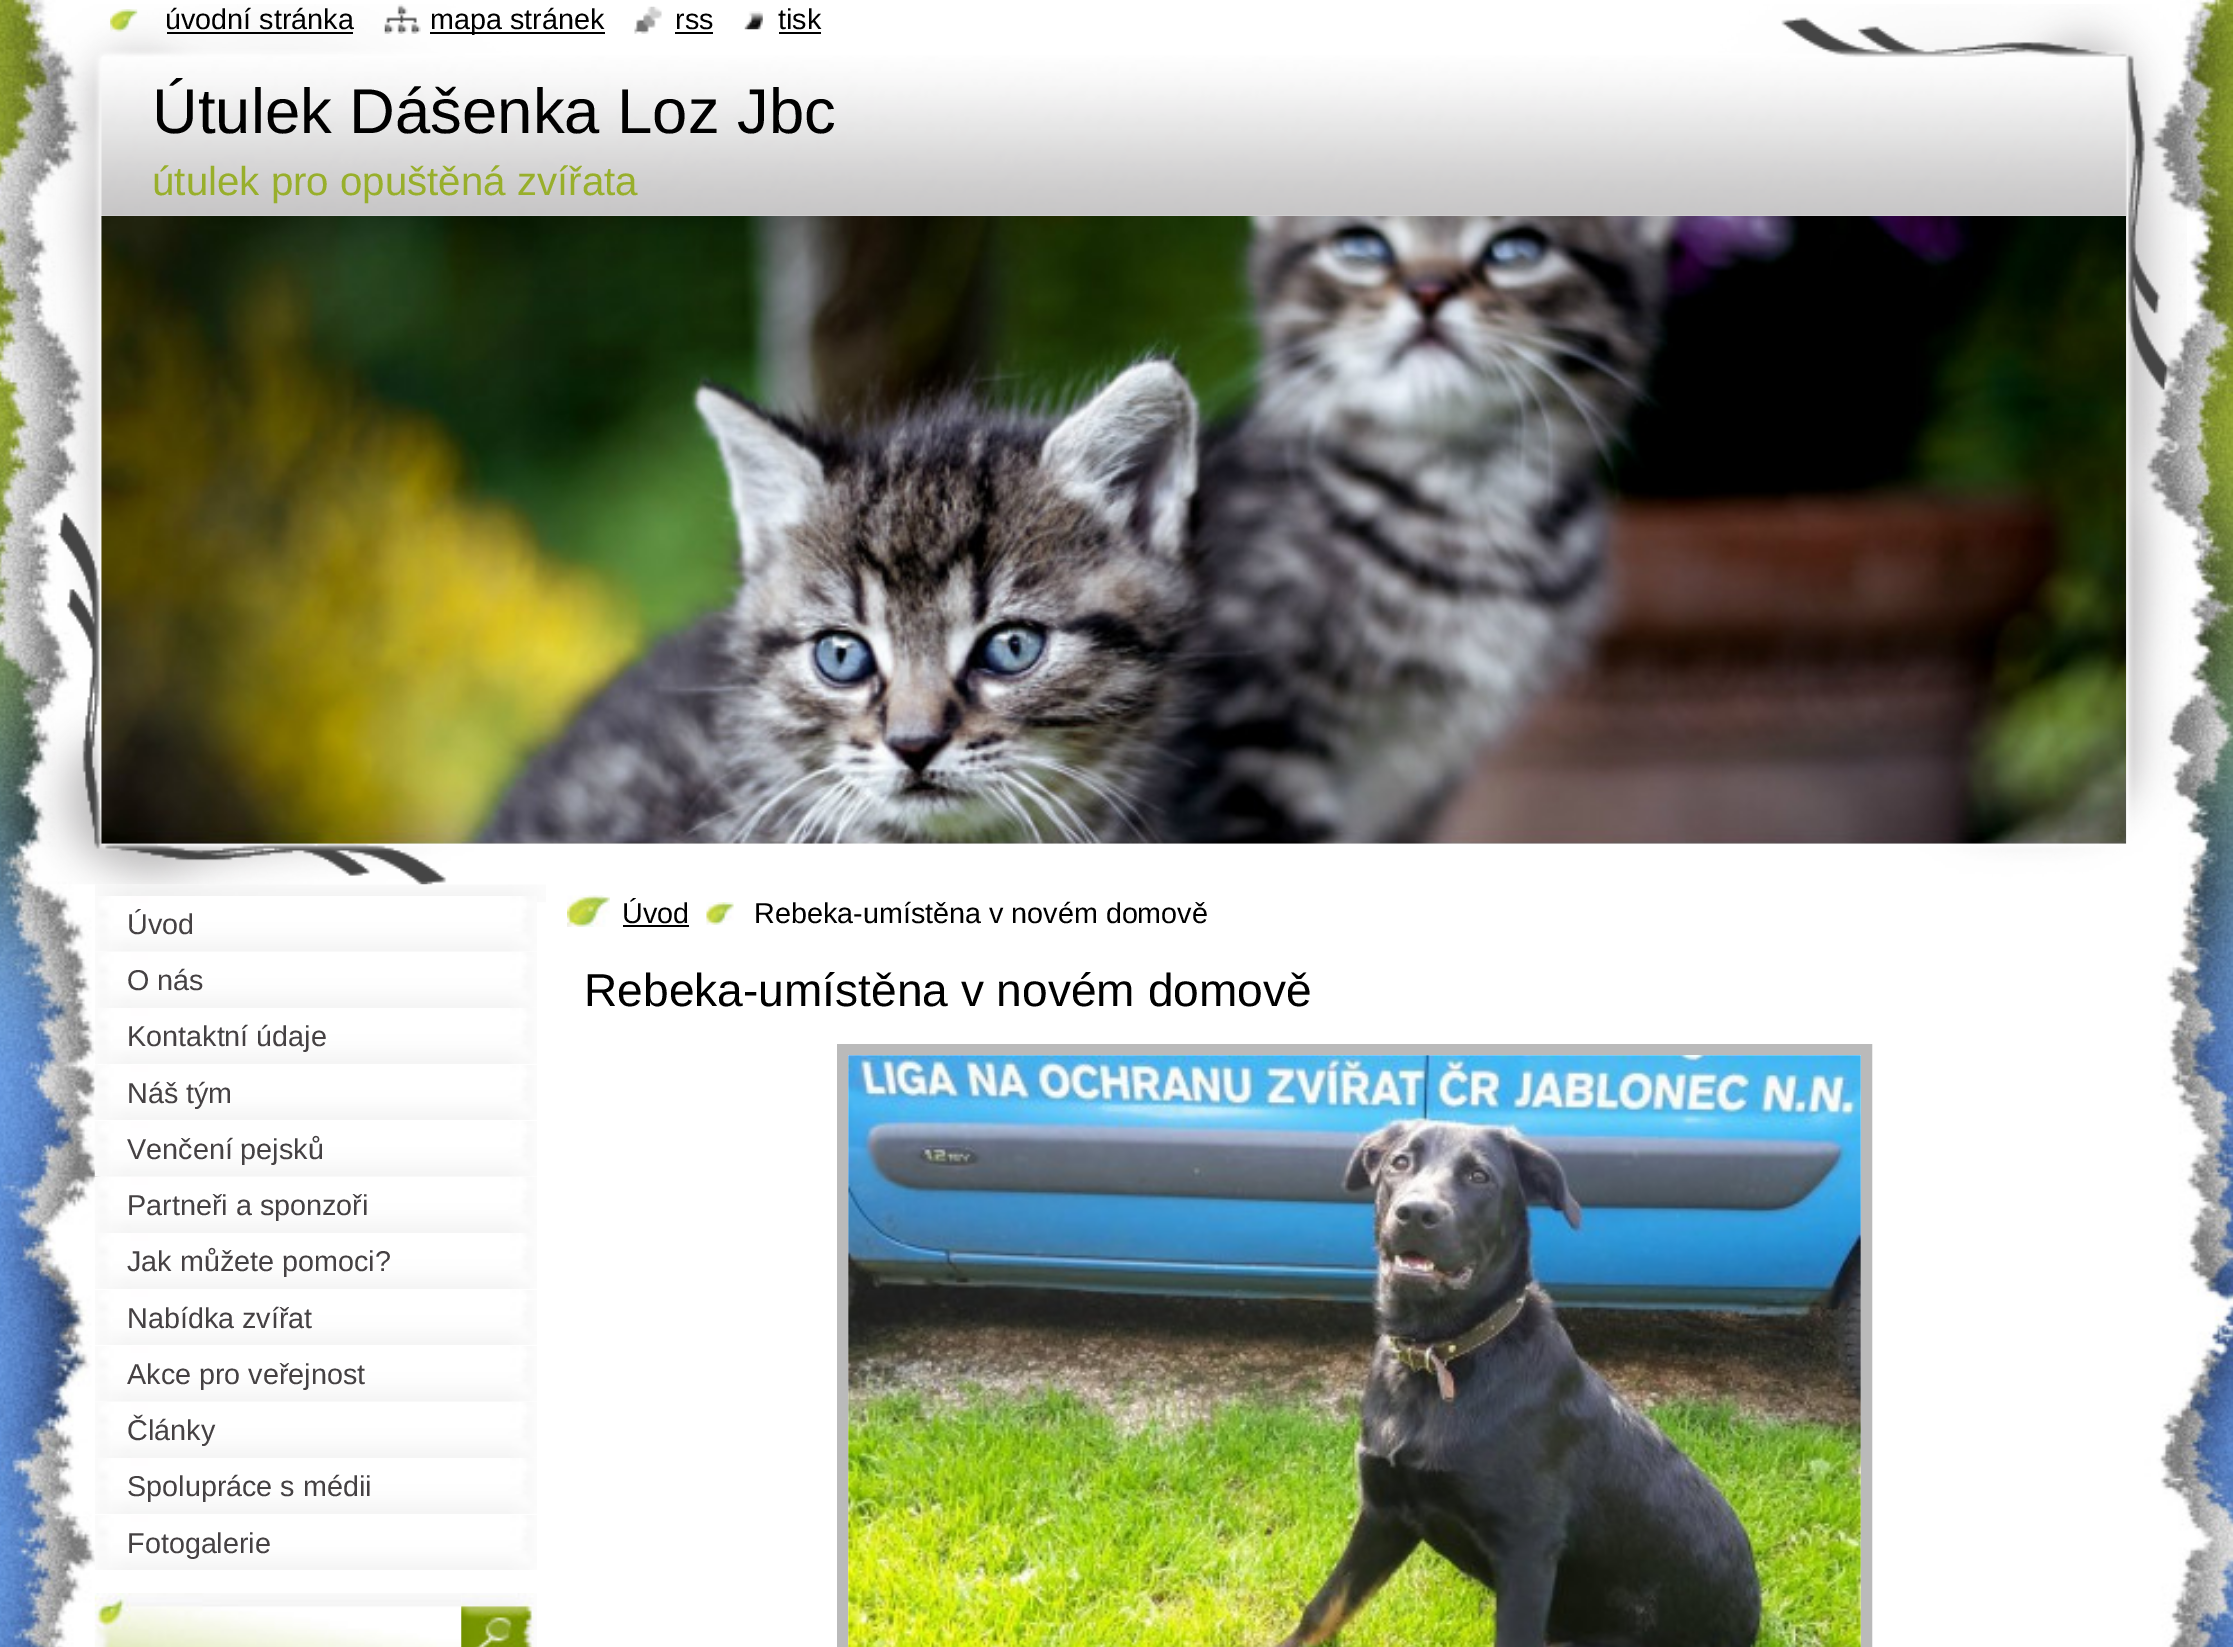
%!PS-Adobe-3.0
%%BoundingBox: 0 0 2233 1647
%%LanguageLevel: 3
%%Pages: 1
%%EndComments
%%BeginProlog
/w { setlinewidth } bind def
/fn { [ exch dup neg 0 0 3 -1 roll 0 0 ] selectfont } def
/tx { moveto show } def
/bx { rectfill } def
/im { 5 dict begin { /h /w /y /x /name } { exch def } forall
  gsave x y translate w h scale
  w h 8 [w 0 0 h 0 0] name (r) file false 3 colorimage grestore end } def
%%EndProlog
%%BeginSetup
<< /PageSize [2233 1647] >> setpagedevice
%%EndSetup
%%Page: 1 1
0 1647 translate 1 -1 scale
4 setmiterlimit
1 setgray
0 0 2233 1647 bx
(image0.raw) 0 1062 2233 585 im
(image1.raw) 0 0 2233 1062 im
(image8.raw) 95 884 451 19 im
(image6.raw) 34 4 2153 881 im
(image2.raw) 110 9 28 23 im
/LiberationSans-Regular 28.75 fn
0 setgray
(úvodní stránka) 165 29 tx
167 32 186 2 bx
(image3.raw) 384 4 37 30 im
430 32 175 2 bx
(mapa stránek) 430 29 tx
(image4.raw) 634 6 28 28 im
(rss) 675 29 tx
675 32 38 2 bx
(image5.raw) 744 11 19 19 im
(tisk) 778 29 tx
779 32 42 2 bx
/LiberationSans-Regular 63.4 fn
(Útulek Dášenka Loz Jbc) 152 133 tx
/LiberationSans-Regular 40.25 fn
0.596 0.686 0.169 setrgbcolor
(útulek pro opuštěná zvířata) 152 195 tx
(image7.raw) 101 216 2026 628 im
(image9.raw) 95 896 442 56 im
/LiberationSans-Regular 28.75 fn
0.271 0.255 0.263 setrgbcolor
(Úvod) 127 934 tx
(image10.raw) 95 952 442 56 im
(O nás) 127 990 tx
(image11.raw) 95 1008 442 56 im
(Kontaktní údaje) 127 1046 tx
(image12.raw) 94 1065 443 55 im
(Náš tým) 127 1103 tx
(image13.raw) 94 1121 443 56 im
(Venčení pejsků) 127 1159 tx
(image14.raw) 94 1177 443 56 im
(Partneři a sponzoři) 127 1215 tx
(image11.raw) 95 1233 442 56 im
(Jak můžete pomoci?) 127 1271 tx
(image15.raw) 95 1290 442 55 im
(Nabídka zvířat) 127 1328 tx
(image9.raw) 95 1346 442 56 im
(Akce pro veřejnost) 127 1384 tx
(image10.raw) 95 1402 442 56 im
(Články) 127 1440 tx
(image11.raw) 95 1458 442 56 im
(Spolupráce s médii) 127 1496 tx
(image15.raw) 95 1515 442 55 im
(Fotogalerie) 127 1553 tx
(image16.raw) 94 1593 367 54 im
(image17.raw) 461 1593 76 54 im
(image18.raw) 567 895 43 32 im
0 setgray
(Úvod) 622 923 tx
623 925 66 2 bx
(image19.raw) 706 902 28 23 im
(Rebeka-umístěna v novém domově) 754 923 tx
/LiberationSans-Regular 46.1 fn
(Rebeka-umístěna v novém domově) 584 1006 tx
0.729 setgray
11 w
842.5 1049.5 1024 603 rectstroke
(image20.raw) 848 1055 1013 592 im
showpage
%%EOF
